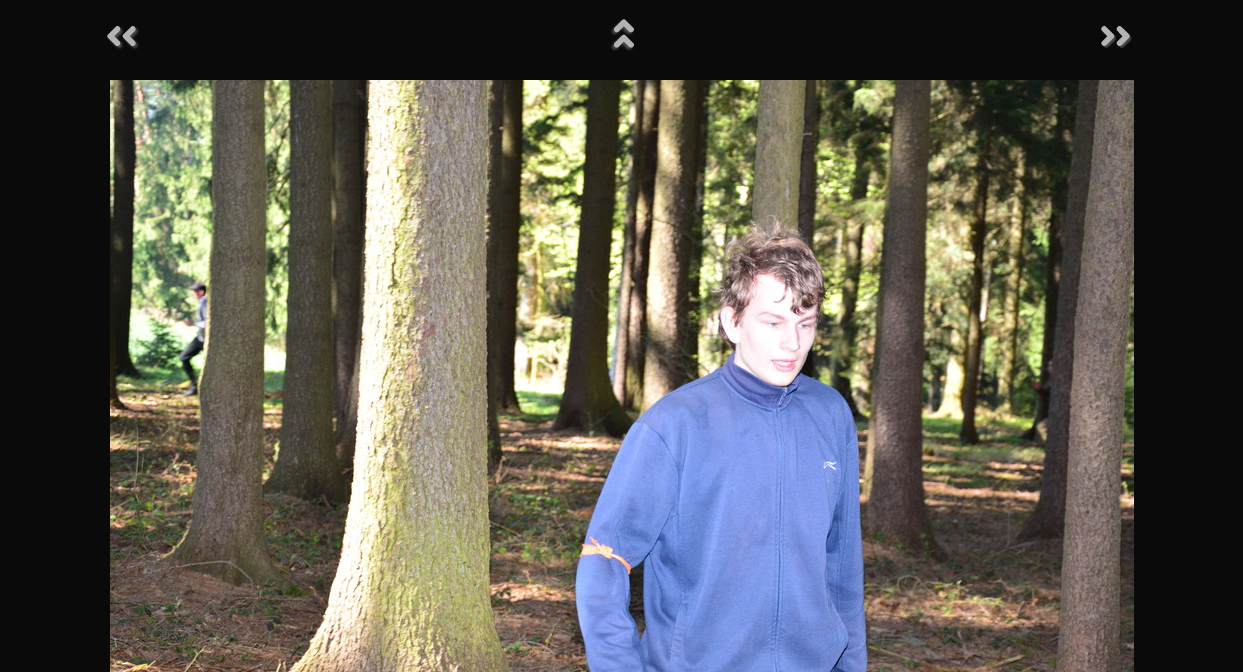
%!PS-Adobe-3.0
%%BoundingBox: 0 0 1243 672
%%LanguageLevel: 3
%%Pages: 1
%%EndComments
%%BeginProlog
/bx { rectfill } def
/im { 5 dict begin { /h /w /y /x /name } { exch def } forall
  gsave x y translate w h scale
  w h 8 [w 0 0 h 0 0] name (r) file false 3 colorimage grestore end } def
%%EndProlog
%%BeginSetup
<< /PageSize [1243 672] >> setpagedevice
%%EndSetup
%%Page: 1 1
0 672 translate 1 -1 scale
4 setmiterlimit
0.039 setgray
0 0 1243 672 bx
(image0.raw) 107 26 32 24 im
(image1.raw) 610 19 24 32 im
(image2.raw) 1101 26 31 22 im
(image3.raw) 110 80 1024 592 im
showpage
%%EOF
